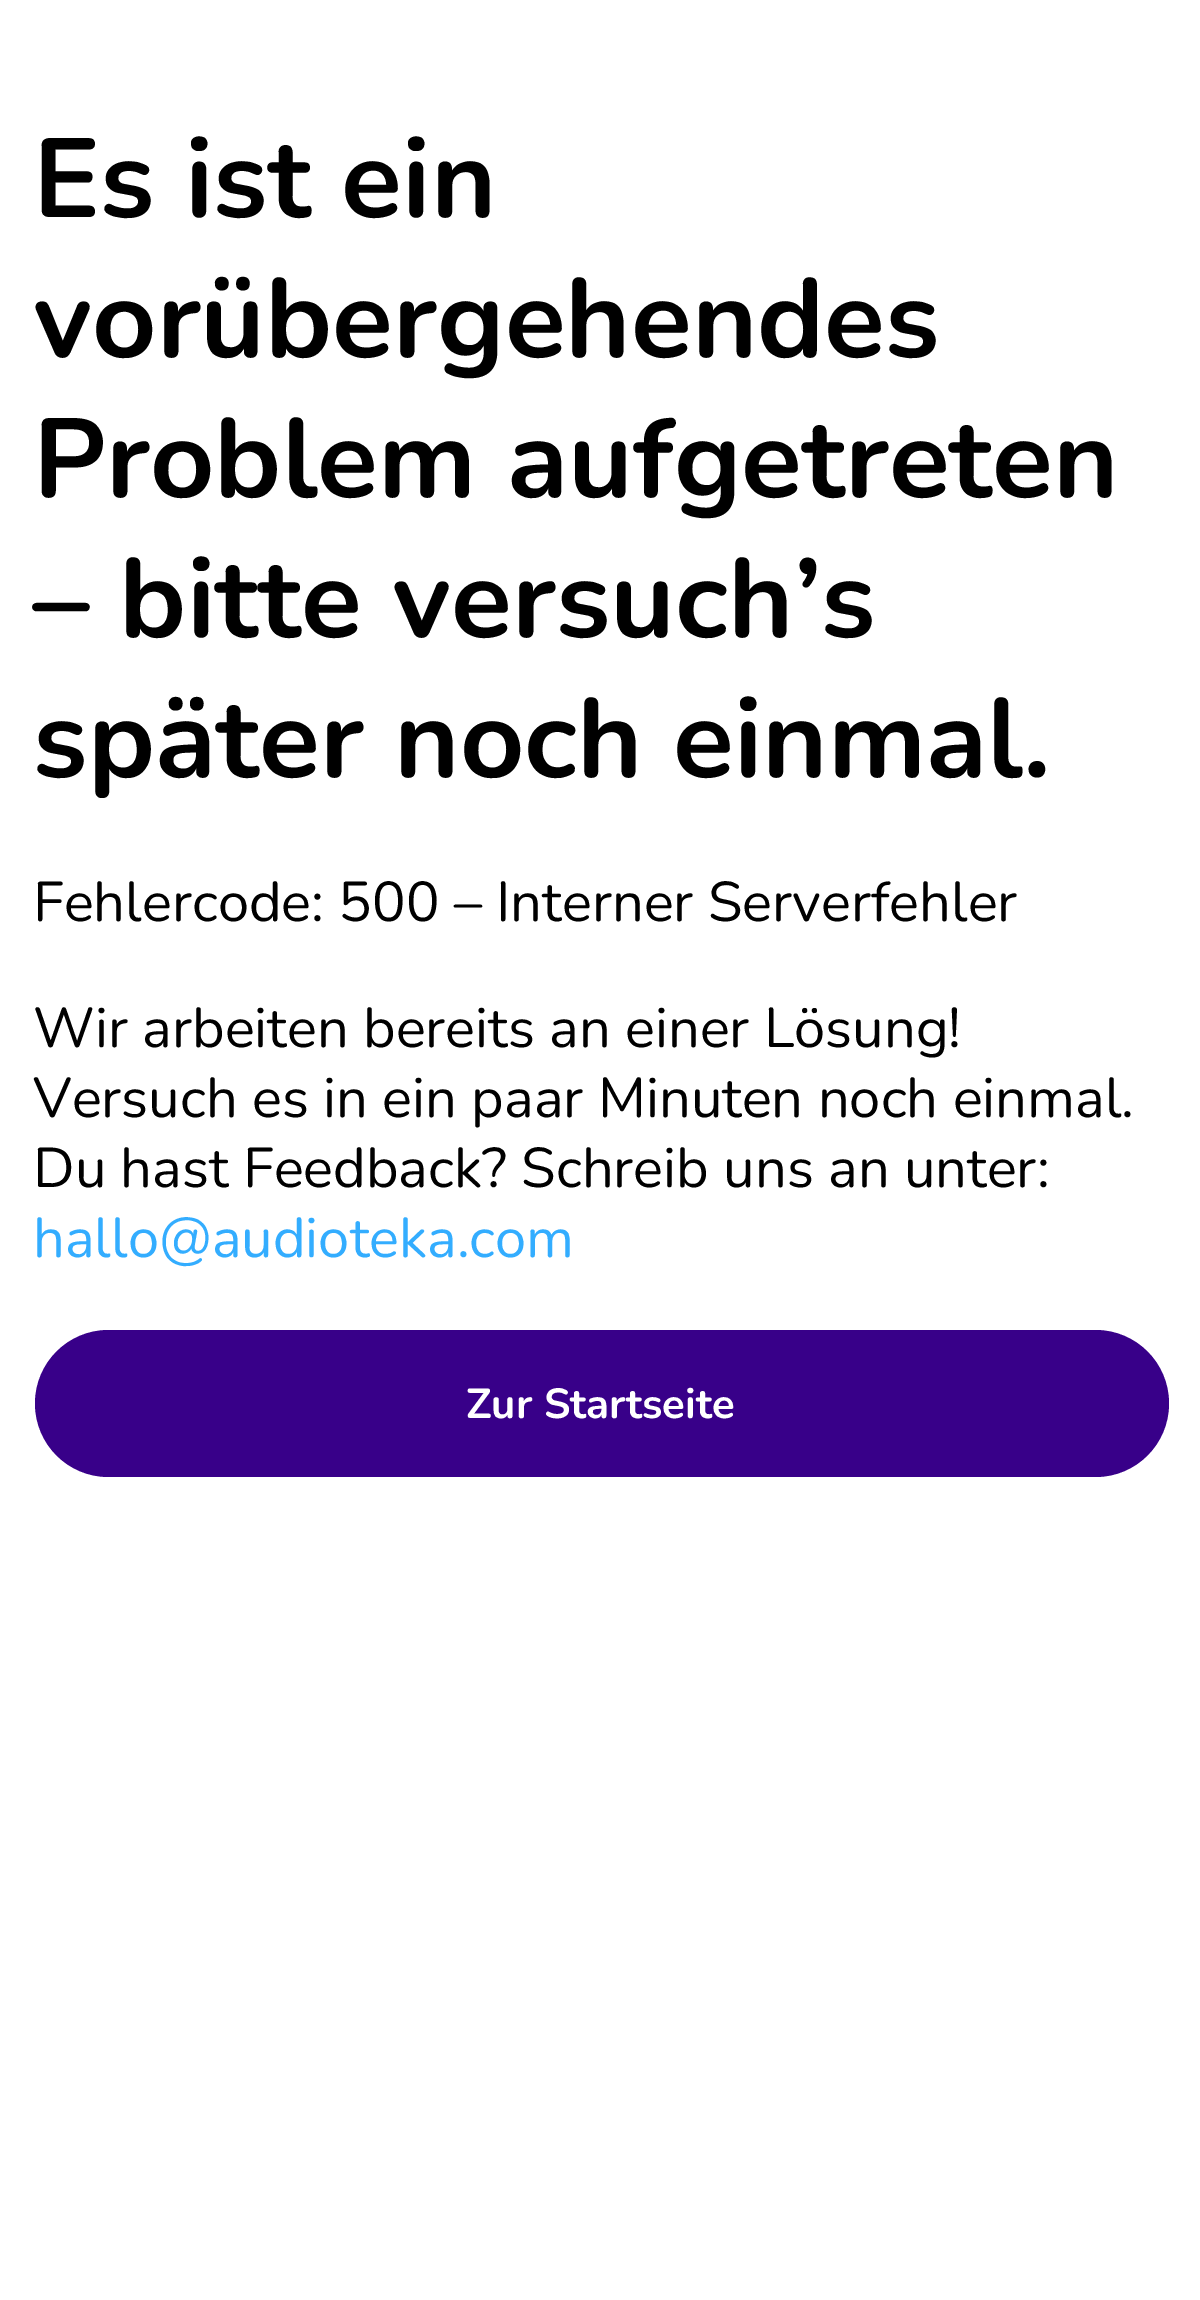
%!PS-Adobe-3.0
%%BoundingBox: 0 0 1200 2300
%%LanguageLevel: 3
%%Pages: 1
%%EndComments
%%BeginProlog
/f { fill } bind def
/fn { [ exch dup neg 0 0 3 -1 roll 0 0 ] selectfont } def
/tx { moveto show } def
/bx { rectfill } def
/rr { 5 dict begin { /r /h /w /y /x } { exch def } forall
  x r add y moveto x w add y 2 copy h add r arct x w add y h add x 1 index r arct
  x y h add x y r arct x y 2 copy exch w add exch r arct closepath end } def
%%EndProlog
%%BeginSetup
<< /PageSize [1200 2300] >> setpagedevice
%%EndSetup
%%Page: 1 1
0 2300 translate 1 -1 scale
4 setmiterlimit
1 setgray
0 0 1200 2300 bx
/Nunito-Bold 112 fn
0 setgray
(Es ist ein) 33 217 tx
(vorübergehendes) 33 357 tx
(Problem aufgetreten) 33 497 tx
(– bitte versuch’s) 33 637 tx
(später noch einmal.) 33 777 tx
/Nunito-Regular 56 fn
(Fehlercode: 500 – Interner Serverfehler) 33 921 tx
(Wir arbeiten bereits an einer Lösung!) 33 1047 tx
(Versuch es in ein paar Minuten noch einmal.) 33 1117 tx
(Du hast Feedback? Schreib uns an unter:) 33 1187 tx
0.2 0.678 1 setrgbcolor
(hallo@audioteka.com) 33 1257 tx
0.22 0 0.537 setrgbcolor
35 1330 1134 147 73.5 rr f
/Nunito-Bold 42 fn
1 setgray
(Zur Startseite) 466 1418 tx
showpage
%%EOF
